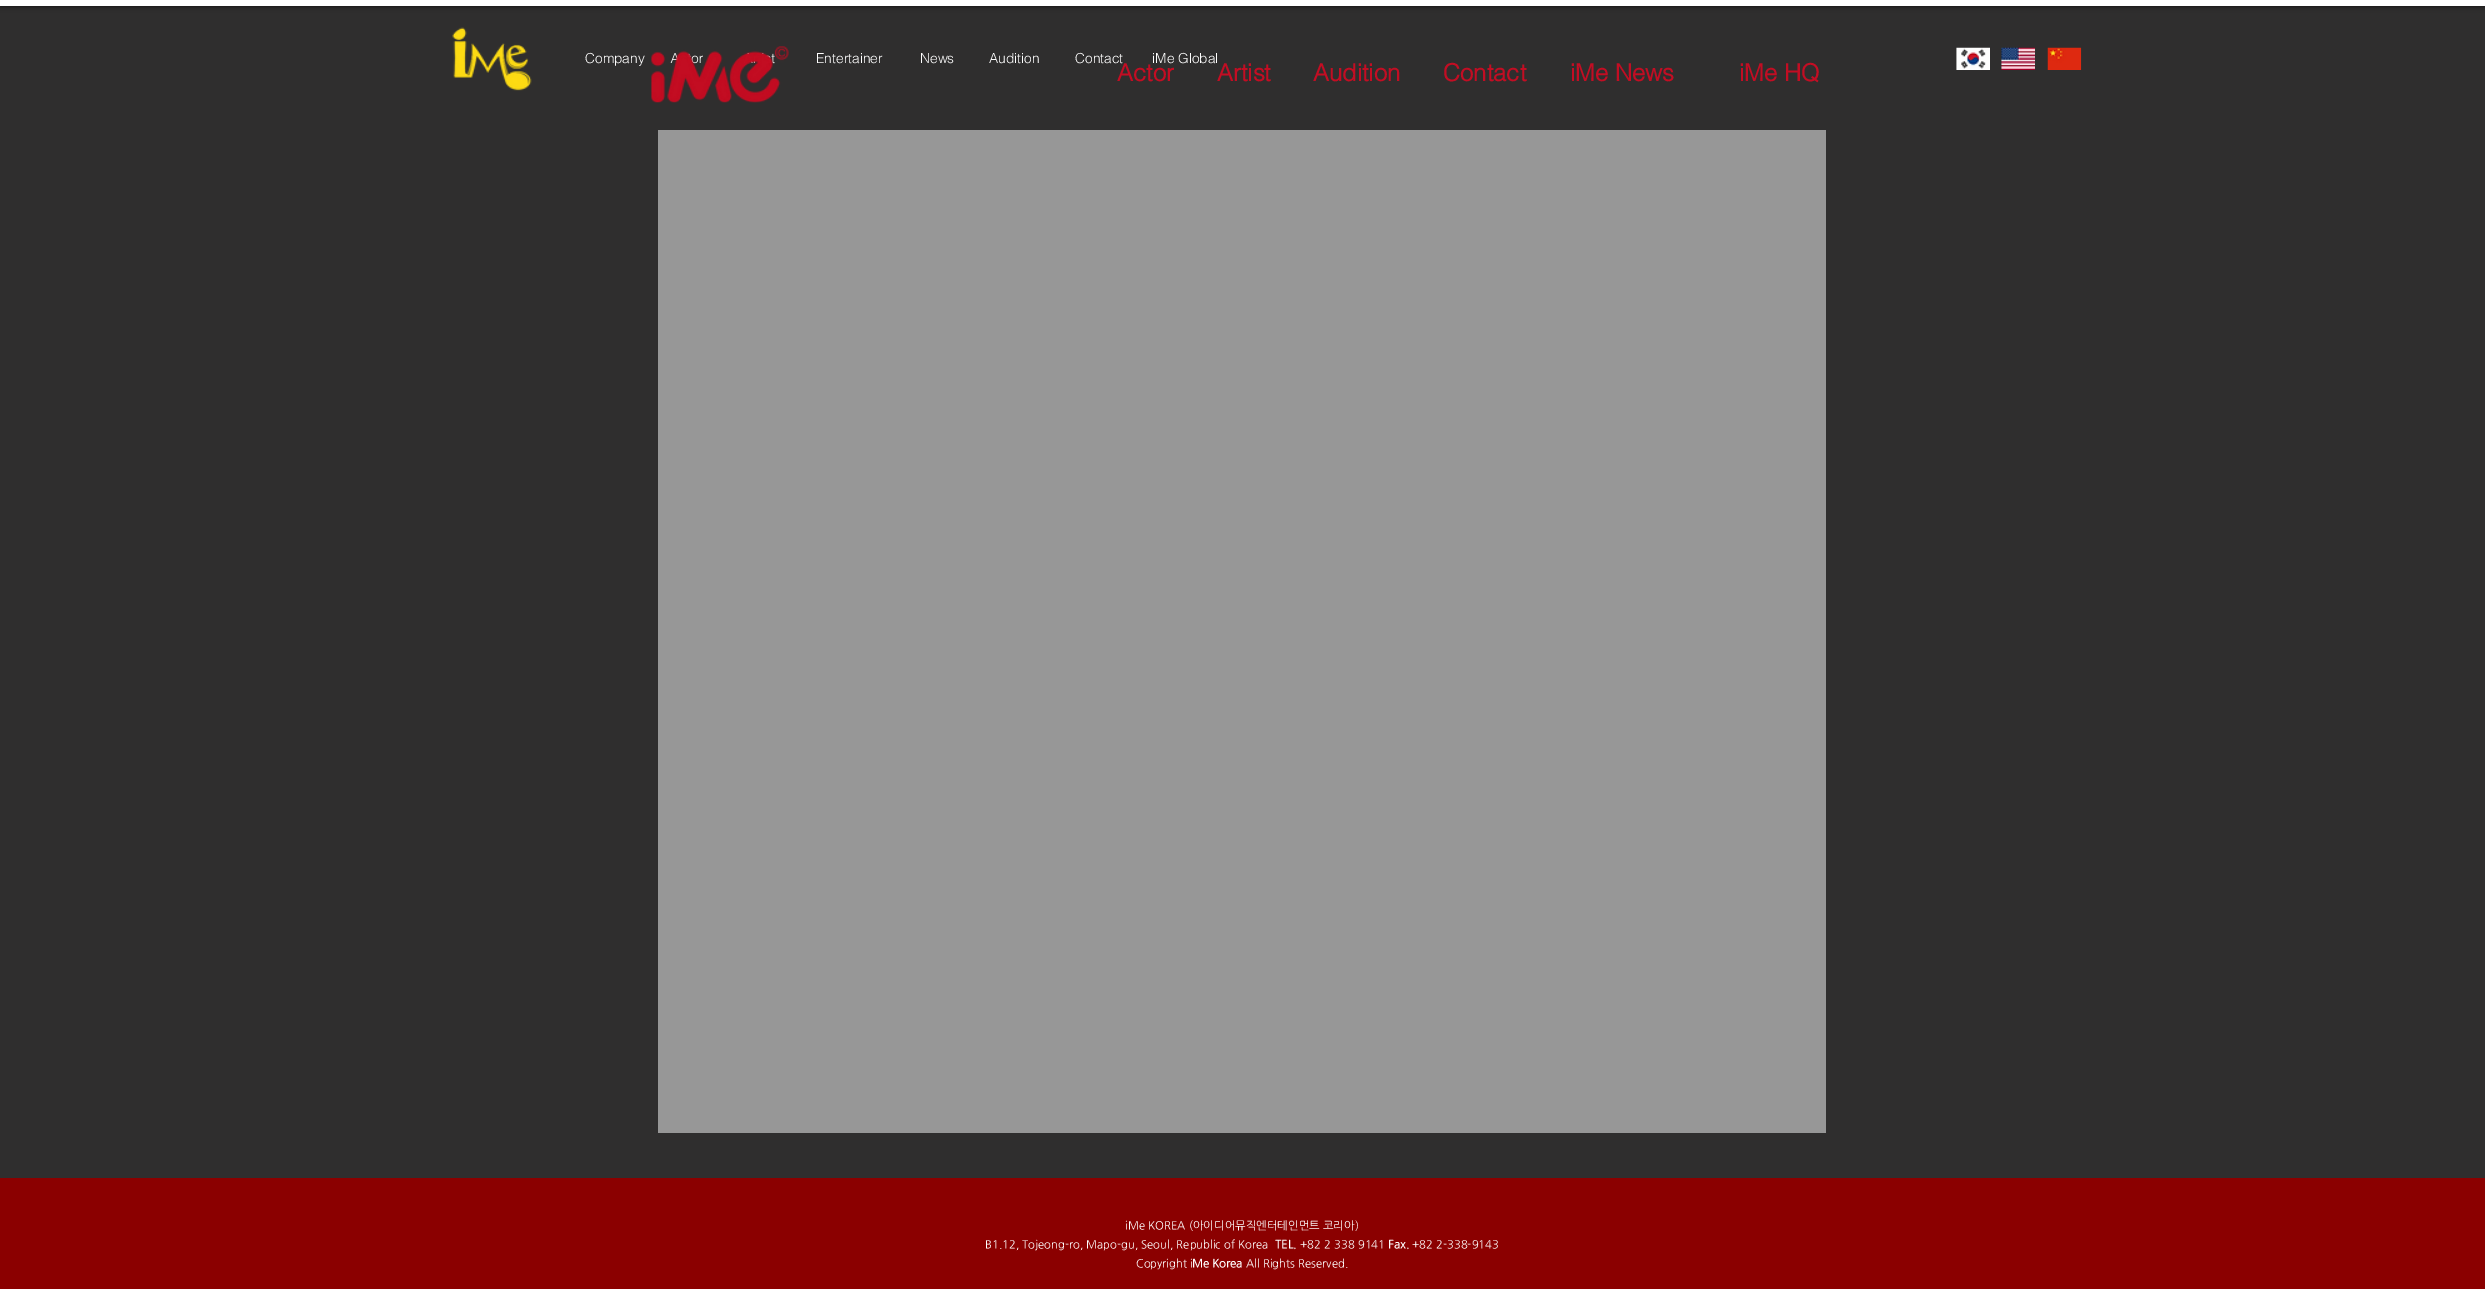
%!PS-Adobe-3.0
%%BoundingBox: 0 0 2485 1289
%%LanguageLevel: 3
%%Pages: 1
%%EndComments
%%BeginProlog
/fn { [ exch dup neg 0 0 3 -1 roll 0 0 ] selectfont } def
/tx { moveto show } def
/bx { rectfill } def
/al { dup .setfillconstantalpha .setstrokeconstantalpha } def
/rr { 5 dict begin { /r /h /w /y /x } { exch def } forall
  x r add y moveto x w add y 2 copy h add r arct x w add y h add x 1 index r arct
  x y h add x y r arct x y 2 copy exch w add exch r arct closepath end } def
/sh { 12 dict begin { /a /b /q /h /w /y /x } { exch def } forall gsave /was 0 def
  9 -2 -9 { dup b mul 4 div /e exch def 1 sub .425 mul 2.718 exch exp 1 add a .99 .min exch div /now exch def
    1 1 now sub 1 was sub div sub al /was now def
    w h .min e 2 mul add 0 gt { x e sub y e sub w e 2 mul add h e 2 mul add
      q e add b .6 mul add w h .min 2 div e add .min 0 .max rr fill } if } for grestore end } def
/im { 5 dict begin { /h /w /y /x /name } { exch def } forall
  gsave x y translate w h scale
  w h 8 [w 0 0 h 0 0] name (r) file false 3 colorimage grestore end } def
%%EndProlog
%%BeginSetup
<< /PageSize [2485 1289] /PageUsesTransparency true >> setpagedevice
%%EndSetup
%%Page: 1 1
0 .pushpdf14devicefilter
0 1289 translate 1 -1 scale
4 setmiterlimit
0.184 0.18 0.18 setrgbcolor
0 0 2485 1289 bx
0 setgray
0 0 2485 6 0 3 0.7 sh
1 setgray
0 0 2485 6 bx
(image0.raw) 452 27 80 64 im
/helvetica-Light 13.75 fn
(Company) 585 63 tx
(A) 670 63 tx
(or) 691 63 tx
(t) 771 63 tx
(Entertainer) 816 63 tx
(News) 920 63 tx
(Audition) 989 63 tx
(Contact) 1075 63 tx
(iMe Global) 1152 63 tx
(image1.raw) 1956 47 34 23 im
(image2.raw) 2001 47 34 23 im
(image3.raw) 2047 47 35 23 im
0.592 setgray
658 130 1168 1003 bx
(image4.raw) 651 46 138 57 im
/helvetica-Bold 23.75 fn
0.765 0.051 0.137 setrgbcolor
(Actor) 1117 81 tx
(Artist) 1217 81 tx
(Audition) 1313 81 tx
(Contact) 1443 81 tx
(iMe News) 1570 81 tx
(iMe HQ) 1739 81 tx
0.545 0 0 setrgbcolor
0 1178 2485 111 bx
/NanumGothic-Regular 11.25 fn
1 setgray
(iMe KOREA \(아이디어뮤직엔터테인먼트 코리아\)) 1125 1229 tx
(B1.12, Tojeong-ro, Mapo-gu, Seoul, Republic of Korea) 985 1248 tx
/NanumGothic-Bold 11.25 fn
(TEL.) 1275 1248 tx
/NanumGothic-Regular 11.25 fn
(+82 2 338 9141) 1300 1248 tx
/NanumGothic-Bold 11.25 fn
(Fax.) 1388 1248 tx
/NanumGothic-Regular 11.25 fn
(+82 2-338-9143) 1412 1248 tx
(Copyright i) 1136 1267 tx
/NanumGothic-Bold 11.25 fn
(Me Korea) 1192 1267 tx
/NanumGothic-Regular 11.25 fn
(All Rights Reserved.) 1246 1267 tx
.poppdf14devicefilter showpage
%%EOF
